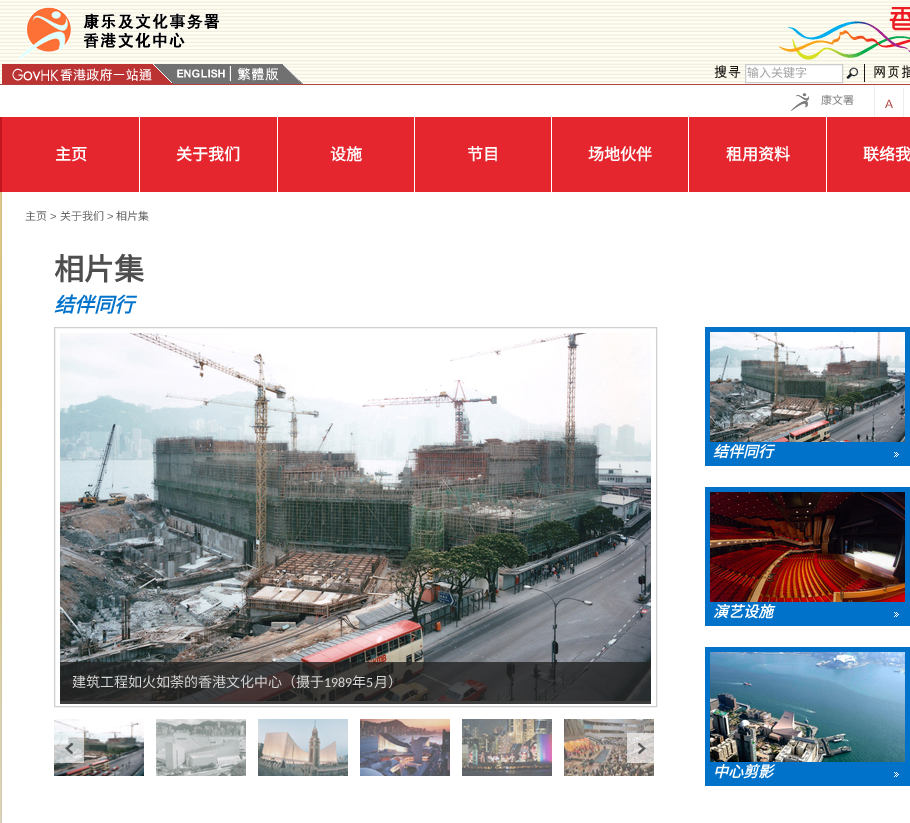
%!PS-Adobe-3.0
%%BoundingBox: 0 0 910 823
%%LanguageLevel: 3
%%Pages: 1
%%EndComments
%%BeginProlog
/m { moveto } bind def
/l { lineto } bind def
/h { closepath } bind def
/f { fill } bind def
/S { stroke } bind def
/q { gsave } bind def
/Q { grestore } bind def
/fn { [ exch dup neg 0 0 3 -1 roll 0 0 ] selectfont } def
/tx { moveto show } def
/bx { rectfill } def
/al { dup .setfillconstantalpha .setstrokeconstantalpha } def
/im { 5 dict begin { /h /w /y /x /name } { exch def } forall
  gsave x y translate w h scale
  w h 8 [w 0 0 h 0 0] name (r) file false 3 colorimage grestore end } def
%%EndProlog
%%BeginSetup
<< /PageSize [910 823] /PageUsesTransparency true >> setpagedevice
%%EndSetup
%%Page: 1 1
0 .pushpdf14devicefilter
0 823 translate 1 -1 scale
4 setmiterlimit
1 setgray
0 0 910 823 bx
(image0.raw) 0 192 2 631 im
(image1.raw) 0 0 910 84 im
0.69 0.263 0.243 setrgbcolor
0 84 910 1 bx
(image2.raw) 18 7 201 54 im
(image3.raw) 778 7 132 53 im
(image4.raw) 2 64 171 20 im
0.443 setgray
173 64 56 20 bx
(image5.raw) 177 69 48 9 im
(image6.raw) 229 64 3 20 im
(image7.raw) 232 64 51 20 im
(image8.raw) 283 64 20 20 im
(image9.raw) 714 65 27 13 im
1 setgray
745.5 64.5 m 842.5 64.5 l 842.5 82.5 l 745.5 82.5 l h q f Q
0.8 setgray
S
/NotoSansCJKSC-Regular 12 fn
0.627 setgray
(输入关键字) 747 77 tx
(image10.raw) 846 64 19 18 im
(image11.raw) 874 65 36 13 im
(image12.raw) 791 93 18 18 im
0.929 setgray
874 85 1 32 bx
/NotoSansCJKSC-Regular 11 fn
0.475 setgray
(康文署) 821 104 tx
0.929 setgray
903 88 1 29 bx
/LiberationSans-Regular 12 fn
0.69 0.263 0.243 setrgbcolor
(A) 885 108 tx
0.761 0.09 0.125 setrgbcolor
0 117 2 75 bx
0.898 0.149 0.18 setrgbcolor
2 117 137 75 bx
/NotoSansCJKSC-Bold 16 fn
1 setgray
(主页) 55 160 tx
0.898 0.149 0.18 setrgbcolor
140 117 137 75 bx
1 setgray
(关于我们) 176 160 tx
0.898 0.149 0.18 setrgbcolor
278 117 136 75 bx
1 setgray
(设施) 330 160 tx
0.898 0.149 0.18 setrgbcolor
415 117 136 75 bx
1 setgray
(节目) 467 160 tx
0.898 0.149 0.18 setrgbcolor
552 117 136 75 bx
1 setgray
(场地伙伴) 588 160 tx
0.898 0.149 0.18 setrgbcolor
689 117 137 75 bx
1 setgray
(租用资料) 726 160 tx
0.898 0.149 0.18 setrgbcolor
827 117 83 75 bx
1 setgray
(联络我) 863 160 tx
(image13.raw) 0 192 910 631 im
/NotoSansCJKSC-Regular 11 fn
0.4 setgray
(主页) 25 220 tx
/LiberationSans-Regular 11 fn
(>) 50 220 tx
/NotoSansCJKSC-Regular 11 fn
(关于我们) 60 220 tx
/LiberationSans-Regular 11 fn
(>) 107 220 tx
/NotoSansCJKSC-Regular 11 fn
(相片集) 116 220 tx
/NotoSansCJKSC-Bold 30 fn
0.306 setgray
(相片集) 54 280 tx
/NotoSansCJKSC-BoldItalic 20 fn
0.004 0.451 0.796 setrgbcolor
(结伴同行) 54 312 tx
0.812 setgray
54.5 327.5 602 379 rectstroke
0.655 setgray
60 701 591 3 bx
(image14.raw) 60 333 591 368 im
0.8 al
0.133 setgray
60 662 591 42 bx
/NotoSansCJKSC-Regular 14 fn
1 al
0.839 setgray
(建筑工程如火如荼的香港文化中心（摄于) 72 687 tx
/Carlito-Regular 14 fn
(1989) 324 687 tx
/NotoSansCJKSC-Regular 14 fn
(年) 352 687 tx
/Carlito-Regular 14 fn
(5) 366 687 tx
/NotoSansCJKSC-Regular 14 fn
(月）) 374 687 tx
(image15.raw) 54 719 90 57 im
0.792 setgray
156 719 90 57 bx
(image16.raw) 156 719 90 57 im
258 719 90 57 bx
(image17.raw) 258 719 90 57 im
360 719 90 57 bx
(image18.raw) 360 719 90 57 im
462 719 90 57 bx
(image19.raw) 462 719 90 57 im
564 719 90 57 bx
(image20.raw) 564 719 90 57 im
(image21.raw) 54 733 30 30 im
(image22.raw) 627 733 27 30 im
0 0.447 0.792 setrgbcolor
705 327 205 139 bx
(image23.raw) 710 332 195 110 im
(image24.raw) 894 452 5 5 im
/NotoSansCJKSC-BoldItalic 15 fn
1 setgray
(结伴同行) 713 457 tx
0 0.447 0.792 setrgbcolor
705 487 205 139 bx
(image25.raw) 710 492 195 110 im
(image24.raw) 894 612 5 5 im
1 setgray
(演艺设施) 713 617 tx
0 0.447 0.792 setrgbcolor
705 647 205 139 bx
(image26.raw) 710 652 195 110 im
(image24.raw) 894 772 5 5 im
1 setgray
(中心剪影) 713 777 tx
.poppdf14devicefilter showpage
%%EOF
